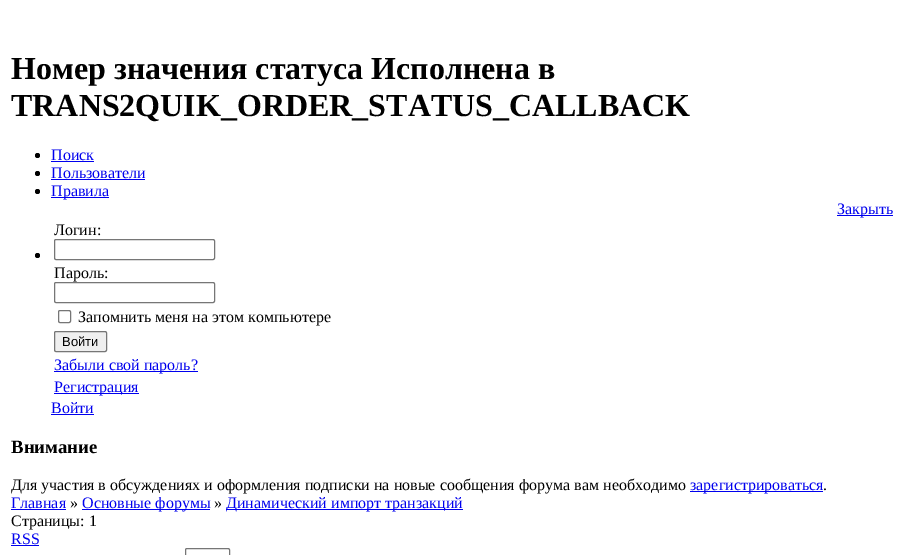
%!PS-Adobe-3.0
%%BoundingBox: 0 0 904 555
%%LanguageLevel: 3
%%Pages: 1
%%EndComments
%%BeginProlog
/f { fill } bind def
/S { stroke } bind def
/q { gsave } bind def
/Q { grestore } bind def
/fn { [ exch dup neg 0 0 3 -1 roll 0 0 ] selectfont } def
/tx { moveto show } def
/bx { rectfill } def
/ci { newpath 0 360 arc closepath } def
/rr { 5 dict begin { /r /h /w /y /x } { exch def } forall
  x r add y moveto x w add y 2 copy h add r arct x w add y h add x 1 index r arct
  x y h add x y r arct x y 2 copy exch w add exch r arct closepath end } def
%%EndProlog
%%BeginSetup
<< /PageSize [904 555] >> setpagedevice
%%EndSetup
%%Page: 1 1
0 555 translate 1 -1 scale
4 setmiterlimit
1 setgray
0 0 904 555 bx
/LiberationSerif-Bold 32 fn
0 setgray
(Номер значения статуса Исполнена в) 11 79 tx
(TRANS2QUIK_ORDER_STATUS_CALLBACK) 11 116 tx
37.5 155.5 2.5 ci f
/LiberationSerif-Regular 16 fn
0 0 0.933 setrgbcolor
(Поиск) 51 160 tx
51 161 43 1 bx
0 setgray
37.5 173.5 2.5 ci f
0 0 0.933 setrgbcolor
(Пользователи) 51 178 tx
51 179 94 1 bx
0 setgray
37.5 191.5 2.5 ci f
0 0 0.933 setrgbcolor
51 197 58 1 bx
(Правила) 51 196 tx
0 setgray
37.5 255.5 2.5 ci f
0 0 0.933 setrgbcolor
837 215 56 1 bx
(Закрыть) 837 214 tx
0 setgray
(Логин:) 54 235 tx
0.463 setgray
54.5 239.5 160 20 1.5 rr S
0 setgray
(Пароль:) 54 278 tx
0.463 setgray
54.5 282.5 160 20 1.5 rr S
58.5 310.5 12 12 1.5 rr S
0 setgray
(Запомнить меня на этом компьютере) 78 322 tx
0.937 setgray
54.5 331.5 52 20 1.5 rr q f Q
0.463 setgray
S
/LiberationSans-Regular 13 fn
0 setgray
(Войти) 62 346 tx
0 0 0.933 setrgbcolor
54 371 144 1 bx
/LiberationSerif-Regular 16 fn
(Забыли свой пароль?) 54 370 tx
54 393 85 1 bx
(Регистрация) 54 392 tx
(Войти) 51 413 tx
51 414 43 1 bx
/LiberationSerif-Bold 18.75 fn
0 setgray
(Внимание) 11 453 tx
/LiberationSerif-Regular 16 fn
(Для участия в обсуждениях и оформления подписки на новые сообщения форума вам необходимо) 11 490 tx
0 0 0.933 setrgbcolor
690 491 133 1 bx
(зарегистрироваться) 690 490 tx
0 setgray
(.) 823 490 tx
0 0 0.933 setrgbcolor
(Главная) 11 508 tx
11 509 55 1 bx
0 setgray
(») 70 508 tx
0 0 0.933 setrgbcolor
82 509 128 1 bx
(Основные форумы) 82 508 tx
0 setgray
(») 214 508 tx
0 0 0.933 setrgbcolor
226 509 237 1 bx
(Динамический импорт транзакций) 226 508 tx
0 setgray
(Страницы: 1) 11 526 tx
0 0 0.933 setrgbcolor
(RSS) 11 544 tx
11 545 28 1 bx
0.463 setgray
185.5 548.5 44 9 1.5 rr S
showpage
%%EOF
